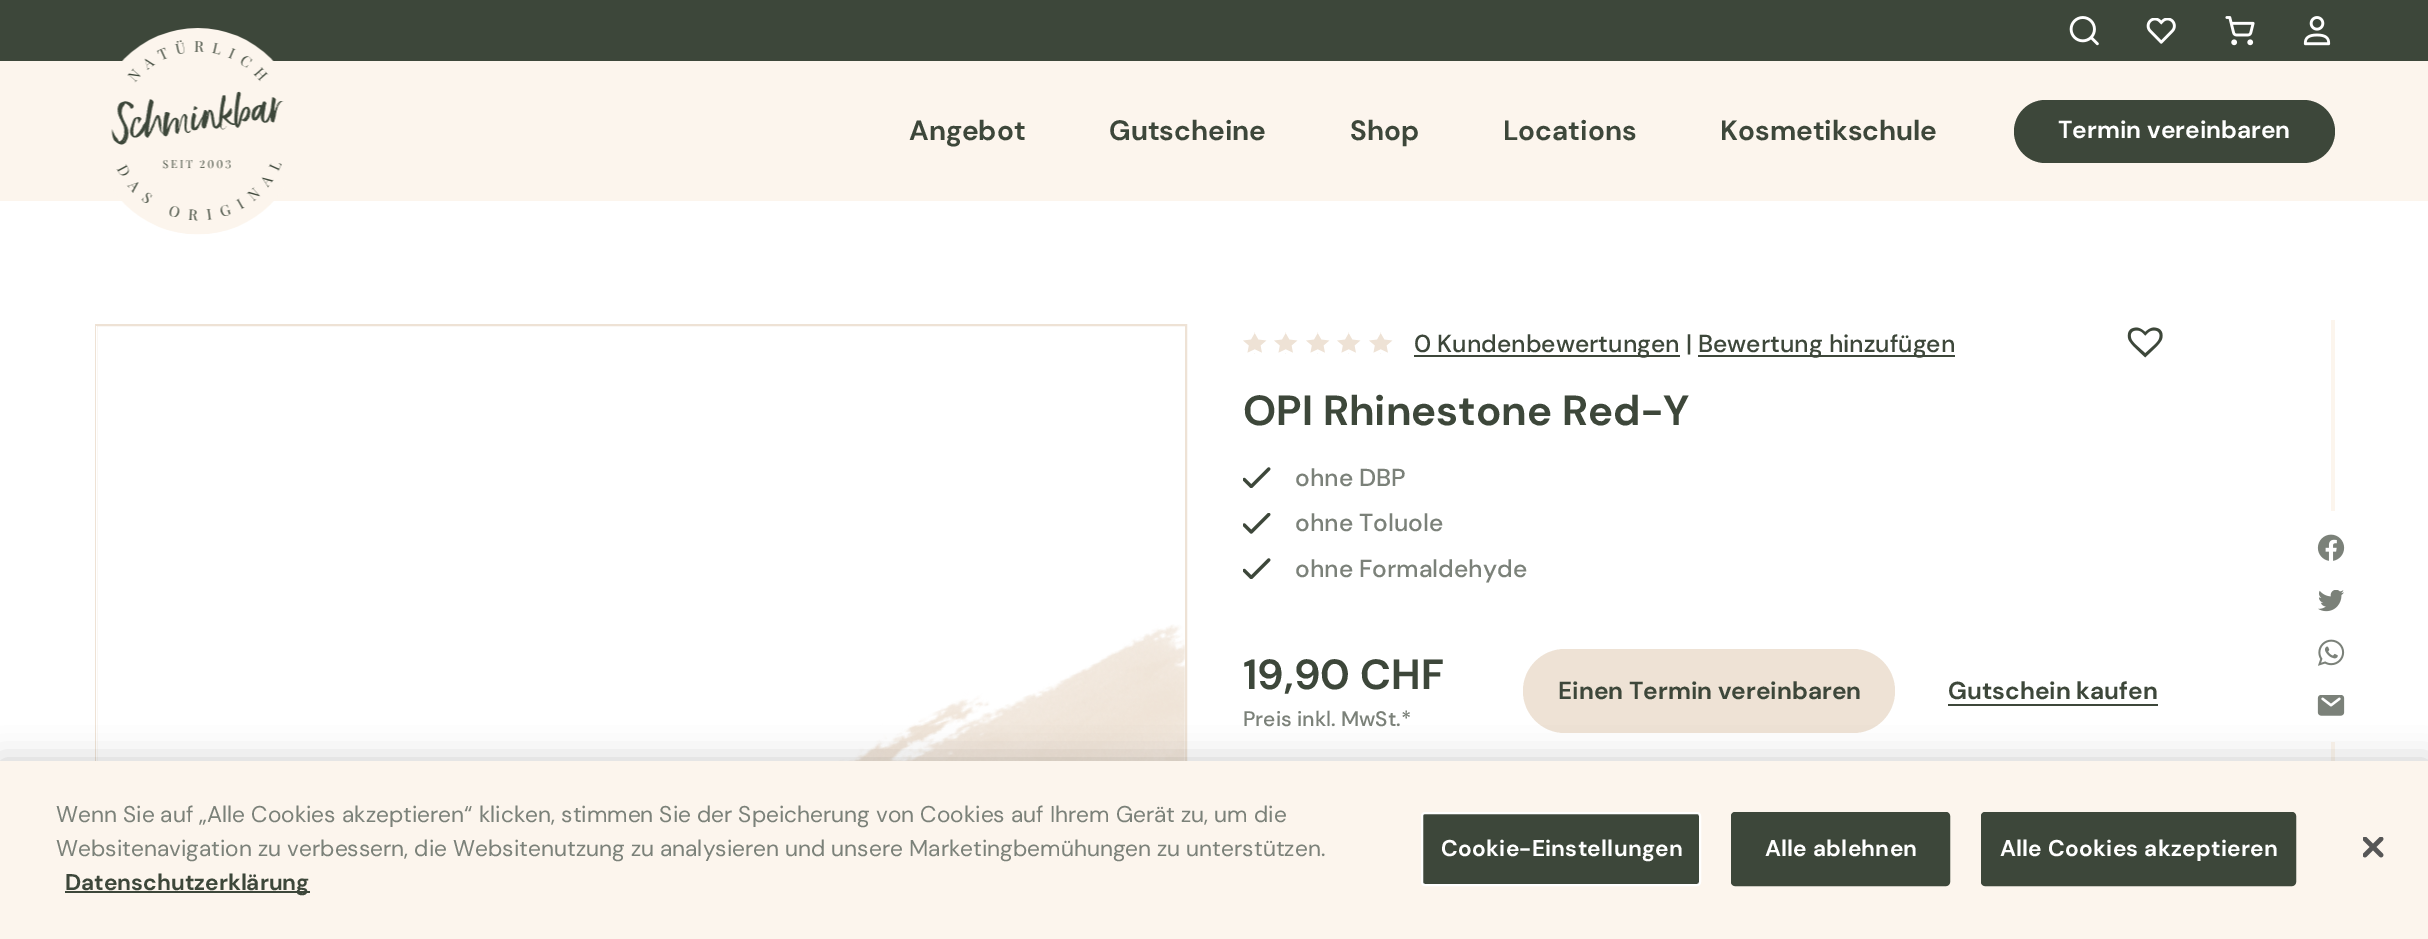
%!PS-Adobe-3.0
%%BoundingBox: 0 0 2428 939
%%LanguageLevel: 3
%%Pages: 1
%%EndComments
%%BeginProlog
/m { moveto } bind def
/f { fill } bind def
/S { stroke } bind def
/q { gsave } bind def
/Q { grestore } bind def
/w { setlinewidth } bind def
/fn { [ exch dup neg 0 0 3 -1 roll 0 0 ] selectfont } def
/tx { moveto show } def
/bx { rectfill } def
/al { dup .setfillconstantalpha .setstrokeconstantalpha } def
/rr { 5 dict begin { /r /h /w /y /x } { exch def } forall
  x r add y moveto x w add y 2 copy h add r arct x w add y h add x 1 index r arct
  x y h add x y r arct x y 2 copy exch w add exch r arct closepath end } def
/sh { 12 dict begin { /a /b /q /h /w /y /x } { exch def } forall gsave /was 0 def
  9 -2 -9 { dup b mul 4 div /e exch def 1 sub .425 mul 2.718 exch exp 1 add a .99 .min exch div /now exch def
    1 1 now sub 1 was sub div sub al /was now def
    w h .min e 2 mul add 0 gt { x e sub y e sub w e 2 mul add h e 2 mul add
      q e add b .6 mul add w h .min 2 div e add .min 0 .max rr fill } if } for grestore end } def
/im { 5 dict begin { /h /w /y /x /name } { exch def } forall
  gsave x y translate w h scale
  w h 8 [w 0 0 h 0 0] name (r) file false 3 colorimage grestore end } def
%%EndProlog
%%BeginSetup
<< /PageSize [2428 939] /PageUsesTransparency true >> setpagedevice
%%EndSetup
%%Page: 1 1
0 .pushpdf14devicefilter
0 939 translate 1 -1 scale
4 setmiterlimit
1 setgray
0 0 2428 939 bx
0.239 0.278 0.227 setrgbcolor
0 0 2428 61 bx
(image0.raw) 2069 16 30 30 im
(image1.raw) 2146 18 30 26 im
(image2.raw) 2225 16 30 30 im
(image3.raw) 2303 16 28 30 im
0.988 0.961 0.929 setrgbcolor
0 61 2428 140 bx
(image4.raw) 111 28 173 207 im
/DMSans-Bold 28 fn
0.239 0.278 0.227 setrgbcolor
(Angebot) 909 140 tx
(Gutscheine) 1109 140 tx
(Shop) 1350 140 tx
(Locations) 1503 140 tx
(Kosmetikschule) 1720 140 tx
2014 100 321 63 31.5 rr f
/DMSans-Bold 24.5 fn
1 setgray
(Termin vereinbaren) 2058 138 tx
0.933 0.886 0.835 setrgbcolor
2 w
96 325 1090 612 rectstroke
1 setgray
96 326 1 435 bx
(image5.raw) 838 624 347 137 im
0.988 0.961 0.929 setrgbcolor
2331 320 4 441 bx
(image6.raw) 1243 332 150 22 im
0.239 0.278 0.227 setrgbcolor
1414 355 266 2 bx
/DMSans-Medium 24.5 fn
(0 Kundenbewertungen |) 1414 352 tx
1698 355 257 2 bx
(Bewertung hinzufügen) 1698 352 tx
(image7.raw) 2127 327 36 31 im
/DMSans-Bold 42 fn
(OPI Rhinestone Red-Y) 1243 425 tx
(image8.raw) 1243 467 28 21 im
/DMSans-Medium 24.5 fn
0.482 0.506 0.475 setrgbcolor
(ohne DBP) 1295 486 tx
(image9.raw) 1243 513 28 21 im
(ohne Toluole) 1295 531 tx
(image8.raw) 1243 558 28 21 im
(ohne Formaldehyde) 1295 577 tx
1 setgray
2331 511 4 231 bx
(image10.raw) 2317 534 28 27 im
(image11.raw) 2318 590 26 22 im
(image12.raw) 2318 639 27 27 im
(image13.raw) 2317 695 28 21 im
/DMSans-Bold 42 fn
0.239 0.278 0.227 setrgbcolor
(19,90 CHF) 1243 689 tx
/DMSans-Medium 21 fn
0.482 0.506 0.475 setrgbcolor
(Preis inkl. MwSt.*) 1243 726 tx
0.933 0.886 0.835 setrgbcolor
1523 649 372 84 42 rr f
/DMSans-Bold 24.5 fn
0.239 0.278 0.227 setrgbcolor
(Einen Termin vereinbaren) 1558 699 tx
(Gutschein kaufen) 1948 699 tx
1948 704 210 2 bx
0 setgray
0 761 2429 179 0 16 0.2 sh
0.988 0.961 0.929 setrgbcolor
0 761 2428 178 bx
/DMSans-Regular 22.75 fn
0.482 0.506 0.475 setrgbcolor
(Wenn Sie auf „Alle Cookies akzeptieren“ klicken, stimmen Sie der Speicherung von Cookies auf Ihrem Gerät zu, um die) 56 822 tx
(Websitenavigation zu verbessern, die Websitenutzung zu analysieren und unsere Marketingbemühungen zu unterstützen.) 56 856 tx
0.239 0.278 0.227 setrgbcolor
65 891 245 2 bx
/DMSans-Bold 22.75 fn
(Datenschutzerklärung) 65 890 tx
1422 813 278 72 3 rr q f Q
1 setgray
S
1441 856 m 0.25 0 (Cookie-Einstellungen) ashow
0.239 0.278 0.227 setrgbcolor
1732 813 217 72 3 rr q f Q
S
1 setgray
1765 856 m 0.25 0 (Alle ablehnen) ashow
0.239 0.278 0.227 setrgbcolor
1982 813 313 72 3 rr q f Q
S
1 setgray
2000 856 m 0.25 0 (Alle Cookies akzeptieren) ashow
(image14.raw) 2363 837 21 21 im
.poppdf14devicefilter showpage
%%EOF
